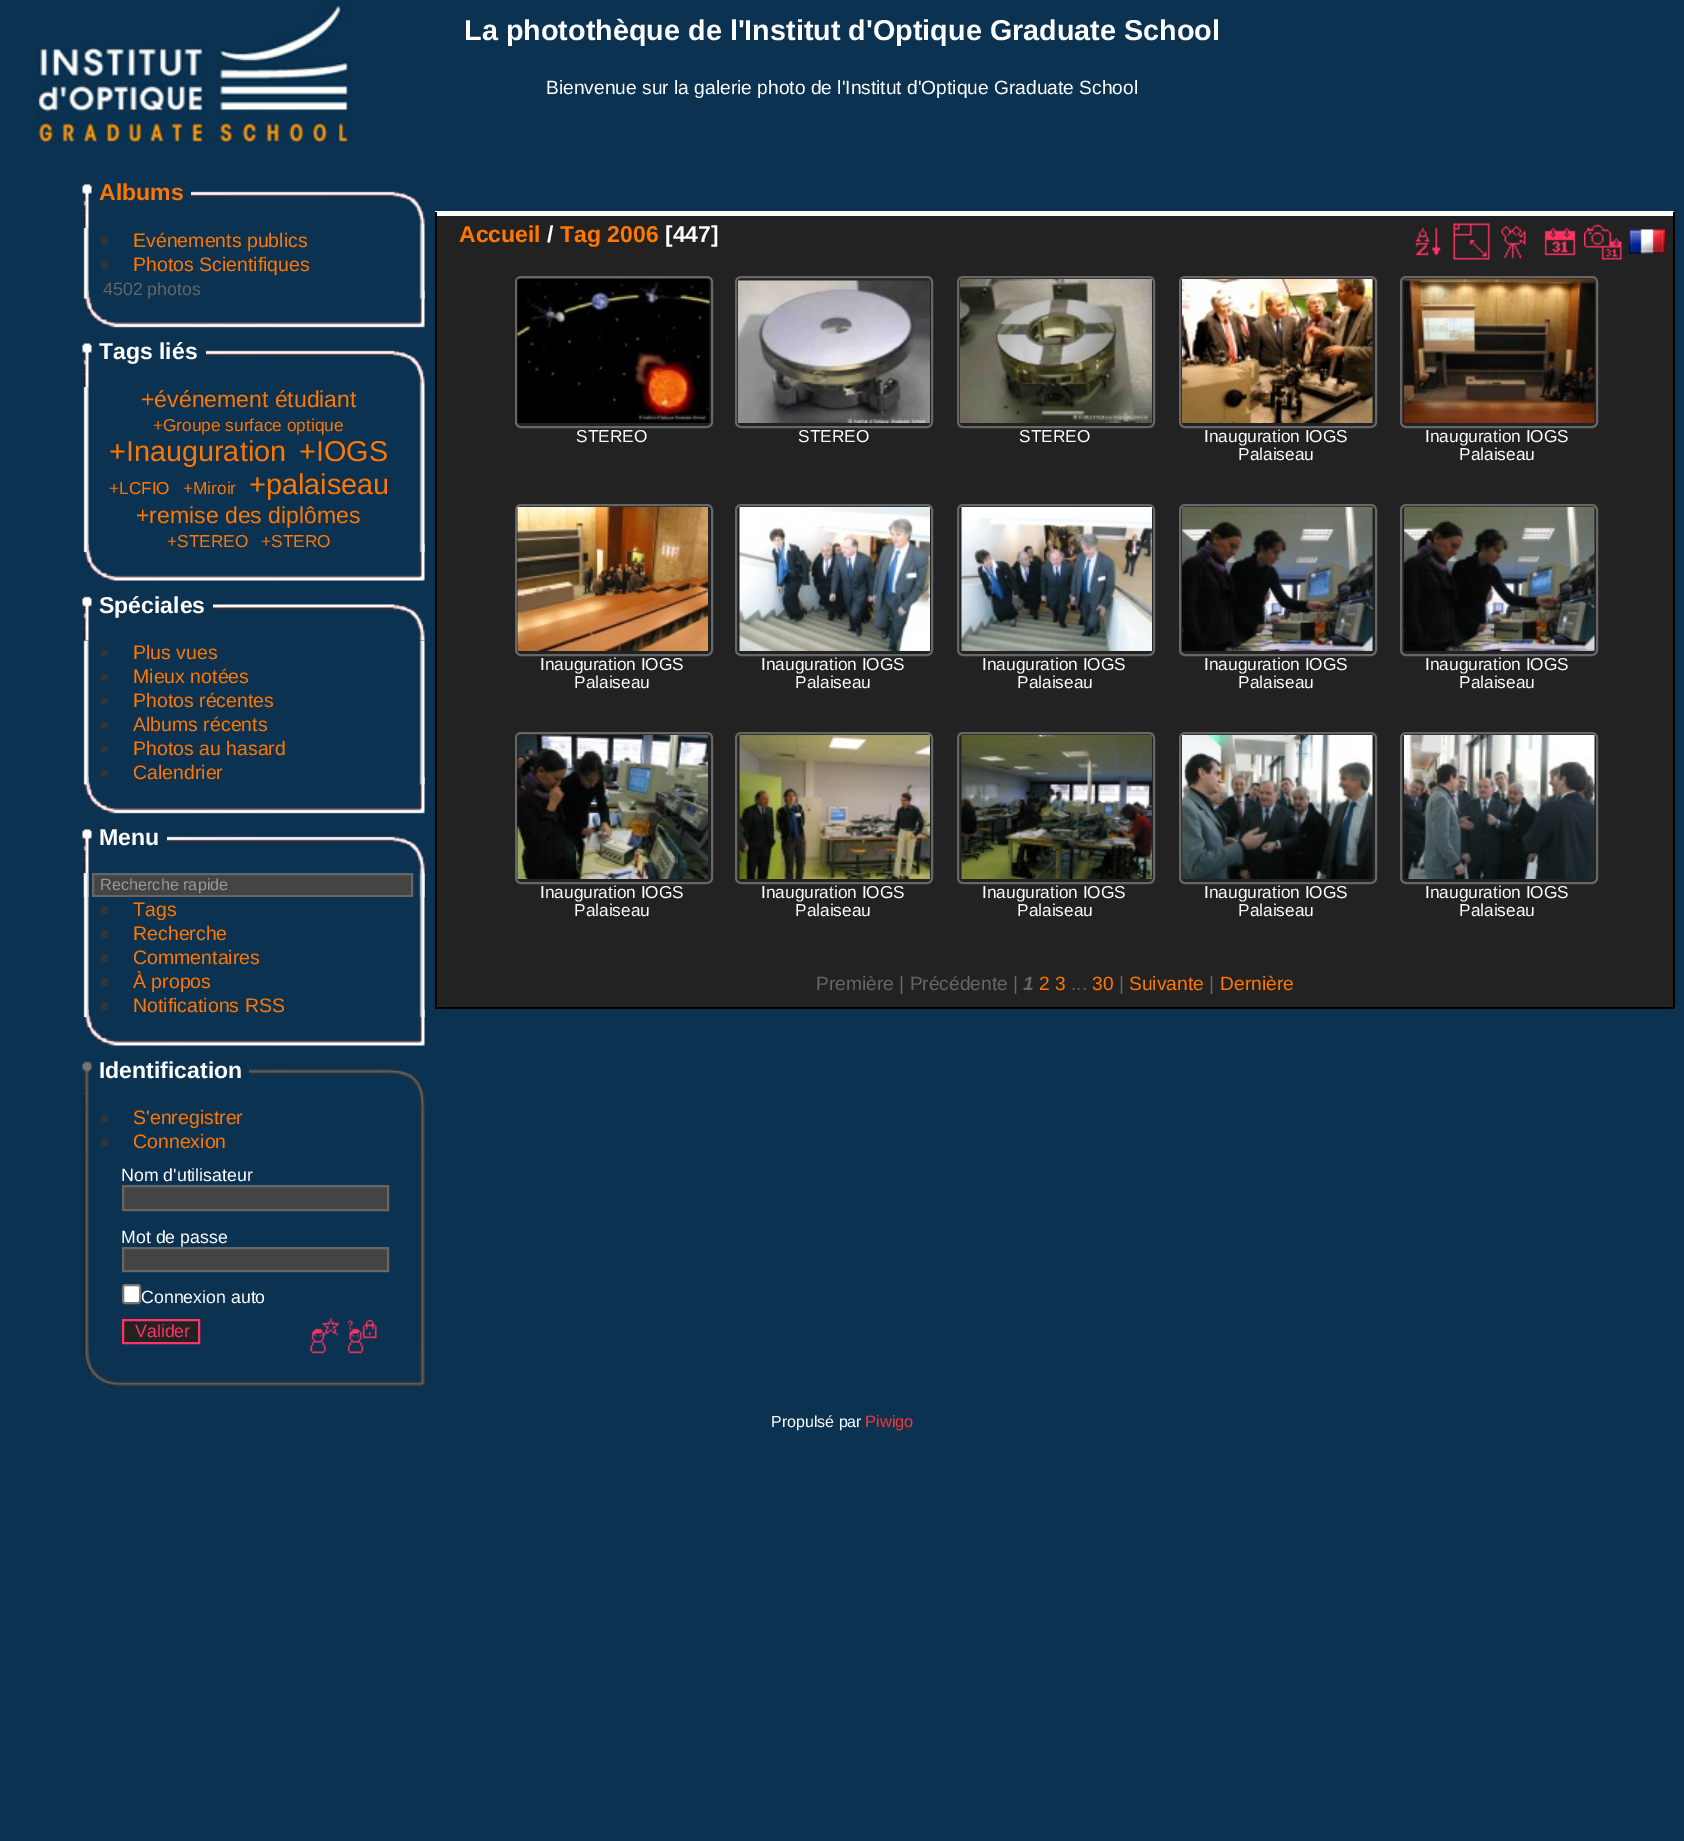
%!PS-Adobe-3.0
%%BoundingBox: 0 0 1684 1841
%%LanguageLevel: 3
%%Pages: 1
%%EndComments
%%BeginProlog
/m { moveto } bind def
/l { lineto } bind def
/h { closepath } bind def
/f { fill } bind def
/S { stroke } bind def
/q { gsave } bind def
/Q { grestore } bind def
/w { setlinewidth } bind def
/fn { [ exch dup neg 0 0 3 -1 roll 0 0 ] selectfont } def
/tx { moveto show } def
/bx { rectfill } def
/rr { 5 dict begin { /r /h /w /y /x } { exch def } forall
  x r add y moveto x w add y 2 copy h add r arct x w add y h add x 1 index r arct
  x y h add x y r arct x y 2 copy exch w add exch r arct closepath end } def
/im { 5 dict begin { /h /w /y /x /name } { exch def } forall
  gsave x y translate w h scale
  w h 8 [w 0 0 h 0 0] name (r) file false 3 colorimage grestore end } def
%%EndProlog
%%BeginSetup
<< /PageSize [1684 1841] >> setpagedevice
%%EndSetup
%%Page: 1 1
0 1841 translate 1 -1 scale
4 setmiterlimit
0.043 0.196 0.318 setrgbcolor
0 0 1684 1841 bx
(image0.raw) 36 0 314 145 im
/LiberationSans-Bold 28.8 fn
1 setgray
(La photothèque de l'Institut d'Optique Graduate School) 464 40 tx
/LiberationSans-Regular 19.2 fn
(Bienvenue sur la galerie photo de l'Institut d'Optique Graduate School) 546 94 tx
(image1.raw) 82 184 343 44 im
0.043 0.196 0.318 setrgbcolor
118 191 73 6 bx
/LiberationSans-Bold 23 fn
1 0.467 0 setrgbcolor
(Albums) 99 200 tx
(image2.raw) 83 291 342 37 im
(image3.raw) 83 228 342 48 im
0.2 setgray
101 237 7 8 bx
/LiberationSans-Regular 19.5 fn
1 0.467 0 setrgbcolor
(Evénements publics) 133 247 tx
0.2 setgray
101 261 7 8 bx
1 0.467 0 setrgbcolor
(Photos Scientifiques) 133 271 tx
(image4.raw) 83 276 342 23 im
/LiberationSans-Regular 17.75 fn
0.4 setgray
(4502 photos) 103 295 tx
(image1.raw) 82 343 343 44 im
0.043 0.196 0.318 setrgbcolor
118 350 88 6 bx
/LiberationSans-Bold 23 fn
1 setgray
(Tags liés) 99 359 tx
(image5.raw) 83 544 342 37 im
(image6.raw) 83 387 342 165 im
/LiberationSans-Regular 23 fn
1 0.467 0 setrgbcolor
(+événement étudiant) 141 407 tx
/LiberationSans-Regular 17.25 fn
(+Groupe surface optique) 153 431 tx
/LiberationSans-Regular 28.8 fn
(+Inauguration) 109 461 tx
(+IOGS) 299 461 tx
/LiberationSans-Regular 17.25 fn
(+LCFIO) 109 494 tx
(+Miroir) 183 494 tx
/LiberationSans-Regular 28.8 fn
(+palaiseau) 249 494 tx
/LiberationSans-Regular 23 fn
(+remise des diplômes) 136 523 tx
/LiberationSans-Regular 17.25 fn
(+STEREO) 167 547 tx
(+STERO) 261 547 tx
(image7.raw) 82 596 343 45 im
0.043 0.196 0.318 setrgbcolor
118 604 95 6 bx
/LiberationSans-Bold 23 fn
1 setgray
(Spéciales) 99 613 tx
(image2.raw) 83 777 342 37 im
(image8.raw) 83 640 342 145 im
0.2 setgray
101 650 7 7 bx
/LiberationSans-Regular 19.5 fn
1 0.467 0 setrgbcolor
(Plus vues) 133 659 tx
0.2 setgray
101 674 7 7 bx
1 0.467 0 setrgbcolor
(Mieux notées) 133 683 tx
0.2 setgray
101 698 7 7 bx
1 0.467 0 setrgbcolor
(Photos récentes) 133 707 tx
0.2 setgray
101 722 7 7 bx
1 0.467 0 setrgbcolor
(Albums récents) 133 731 tx
0.2 setgray
101 746 7 7 bx
1 0.467 0 setrgbcolor
(Photos au hasard) 133 755 tx
0.2 setgray
101 770 7 7 bx
1 0.467 0 setrgbcolor
(Calendrier) 133 779 tx
(image1.raw) 82 829 343 44 im
0.043 0.196 0.318 setrgbcolor
118 836 49 6 bx
/LiberationSans-Bold 23 fn
1 setgray
(Menu) 99 845 tx
(image5.raw) 83 1009 342 37 im
(image9.raw) 83 873 342 24 im
(image10.raw) 83 873 342 24 im
0.267 setgray
93 874 m 412 874 l 412 896 l 93 896 l h q f Q
0.4 setgray
2 w
S
/LiberationSans-Regular 16.25 fn
0.6 setgray
(Recherche rapide) 100 890 tx
(image11.raw) 83 897 342 120 im
0.2 setgray
101 906 7 8 bx
/LiberationSans-Regular 19.5 fn
1 0.467 0 setrgbcolor
(Tags) 133 916 tx
0.2 setgray
101 930 7 8 bx
1 0.467 0 setrgbcolor
(Recherche) 133 940 tx
0.2 setgray
101 954 7 8 bx
1 0.467 0 setrgbcolor
(Commentaires) 133 964 tx
0.2 setgray
101 978 7 8 bx
1 0.467 0 setrgbcolor
(À propos) 133 988 tx
0.2 setgray
101 1002 7 8 bx
1 0.467 0 setrgbcolor
(Notifications RSS) 133 1012 tx
(image12.raw) 82 1061 343 45 im
0.043 0.196 0.318 setrgbcolor
118 1069 131 6 bx
/LiberationSans-Bold 23 fn
1 setgray
(Identification) 99 1078 tx
(image13.raw) 83 1350 342 37 im
(image14.raw) 83 1105 342 49 im
0.2 setgray
101 1115 7 7 bx
/LiberationSans-Regular 19.5 fn
1 0.467 0 setrgbcolor
(S'enregistrer) 133 1124 tx
0.2 setgray
101 1139 7 7 bx
1 0.467 0 setrgbcolor
(Connexion) 133 1148 tx
(image15.raw) 83 1153 342 205 im
/LiberationSans-Regular 17.75 fn
1 setgray
(Nom d'utilisateur) 121 1181 tx
0.267 setgray
123 1186 m 388 1186 l 388 1210 l 123 1210 l h q f Q
0.4 setgray
S
1 setgray
(Mot de passe) 121 1243 tx
0.267 setgray
123 1248 m 388 1248 l 388 1271 l 123 1271 l h q f Q
0.4 setgray
S
1 setgray
123 1285 17 18 2 rr q f Q
0.463 setgray
S
1 setgray
(Connexion auto) 141 1303 tx
0.133 setgray
123 1320 m 199 1320 l 199 1343 l 123 1343 l h q f Q
1 0.2 0.388 setrgbcolor
S
(Valider) 135 1337 tx
(image16.raw) 310 1318 30 36 im
(image17.raw) 347 1319 30 35 im
0.133 setgray
437 216 1236 791 bx
1 setgray
435 211 1239 5 bx
0 setgray
1673 212 2 796 bx
435 1007 1239 2 bx
435 212 2 796 bx
/LiberationSans-Bold 23 fn
1 0.467 0 setrgbcolor
(Accueil) 459 242 tx
1 setgray
(/) 547 242 tx
1 0.467 0 setrgbcolor
(Tag 2006) 560 242 tx
1 setgray
([447]) 665 242 tx
(image18.raw) 1415 227 26 29 im
(image19.raw) 1453 223 37 37 im
(image20.raw) 1501 226 25 33 im
(image21.raw) 1544 227 32 29 im
(image22.raw) 1584 224 38 36 im
(image23.raw) 1629 229 36 25 im
0.4 setgray
516 277 196 150 5 rr S
(image24.raw) 517 279 193 144 im
/LiberationSans-Regular 17.25 fn
1 setgray
(STEREO) 576 442 tx
0.4 setgray
736 277 196 150 5 rr S
(image25.raw) 738 280 192 143 im
1 setgray
(STEREO) 798 442 tx
0.4 setgray
958 277 196 150 5 rr S
(image26.raw) 960 279 192 144 im
1 setgray
(STEREO) 1019 442 tx
0.4 setgray
1180 277 196 150 5 rr S
(image27.raw) 1182 279 191 144 im
1 setgray
(Inauguration IOGS) 1204 442 tx
(Palaiseau) 1238 460 tx
0.4 setgray
1401 277 196 150 5 rr S
(image28.raw) 1404 279 191 144 im
1 setgray
(Inauguration IOGS) 1425 442 tx
(Palaiseau) 1459 460 tx
0.4 setgray
516 505 196 150 5 rr S
(image29.raw) 517 507 191 144 im
1 setgray
(Inauguration IOGS) 540 670 tx
(Palaiseau) 574 688 tx
0.4 setgray
736 505 196 150 5 rr S
(image30.raw) 739 507 191 144 im
1 setgray
(Inauguration IOGS) 761 670 tx
(Palaiseau) 795 688 tx
0.4 setgray
958 505 196 150 5 rr S
(image31.raw) 961 507 191 144 im
1 setgray
(Inauguration IOGS) 982 670 tx
(Palaiseau) 1017 688 tx
0.4 setgray
1180 505 196 150 5 rr S
(image32.raw) 1182 507 191 144 im
1 setgray
(Inauguration IOGS) 1204 670 tx
(Palaiseau) 1238 688 tx
0.4 setgray
1401 505 196 150 5 rr S
(image33.raw) 1404 507 191 144 im
1 setgray
(Inauguration IOGS) 1425 670 tx
(Palaiseau) 1459 688 tx
0.4 setgray
516 733 196 150 5 rr S
(image34.raw) 517 735 191 144 im
1 setgray
(Inauguration IOGS) 540 898 tx
(Palaiseau) 574 916 tx
0.4 setgray
736 733 196 150 5 rr S
(image35.raw) 739 735 191 144 im
1 setgray
(Inauguration IOGS) 761 898 tx
(Palaiseau) 795 916 tx
0.4 setgray
958 733 196 150 5 rr S
(image36.raw) 961 735 191 144 im
1 setgray
(Inauguration IOGS) 982 898 tx
(Palaiseau) 1017 916 tx
0.4 setgray
1180 733 196 150 5 rr S
(image37.raw) 1182 735 191 144 im
1 setgray
(Inauguration IOGS) 1204 898 tx
(Palaiseau) 1238 916 tx
0.4 setgray
1401 733 196 150 5 rr S
(image38.raw) 1404 735 191 144 im
1 setgray
(Inauguration IOGS) 1425 898 tx
(Palaiseau) 1459 916 tx
/LiberationSans-Regular 19.2 fn
0.4 setgray
(Première | Précédente |) 816 990 tx
/LiberationSans-BoldItalic 19.2 fn
(1) 1023 990 tx
/LiberationSans-Regular 19.2 fn
1 0.467 0 setrgbcolor
(2 3) 1039 990 tx
0.4 setgray
(...) 1071 990 tx
1 0.467 0 setrgbcolor
(30) 1092 990 tx
0.4 setgray
(|) 1119 990 tx
1 0.467 0 setrgbcolor
(Suivante) 1129 990 tx
0.4 setgray
(|) 1209 990 tx
1 0.467 0 setrgbcolor
(Dernière) 1220 990 tx
/LiberationSans-Regular 16 fn
1 setgray
(Propulsé par) 771 1427 tx
/LiberationSans-Regular 16.5 fn
1 0.2 0.2 setrgbcolor
(Piwigo) 865 1427 tx
showpage
%%EOF
